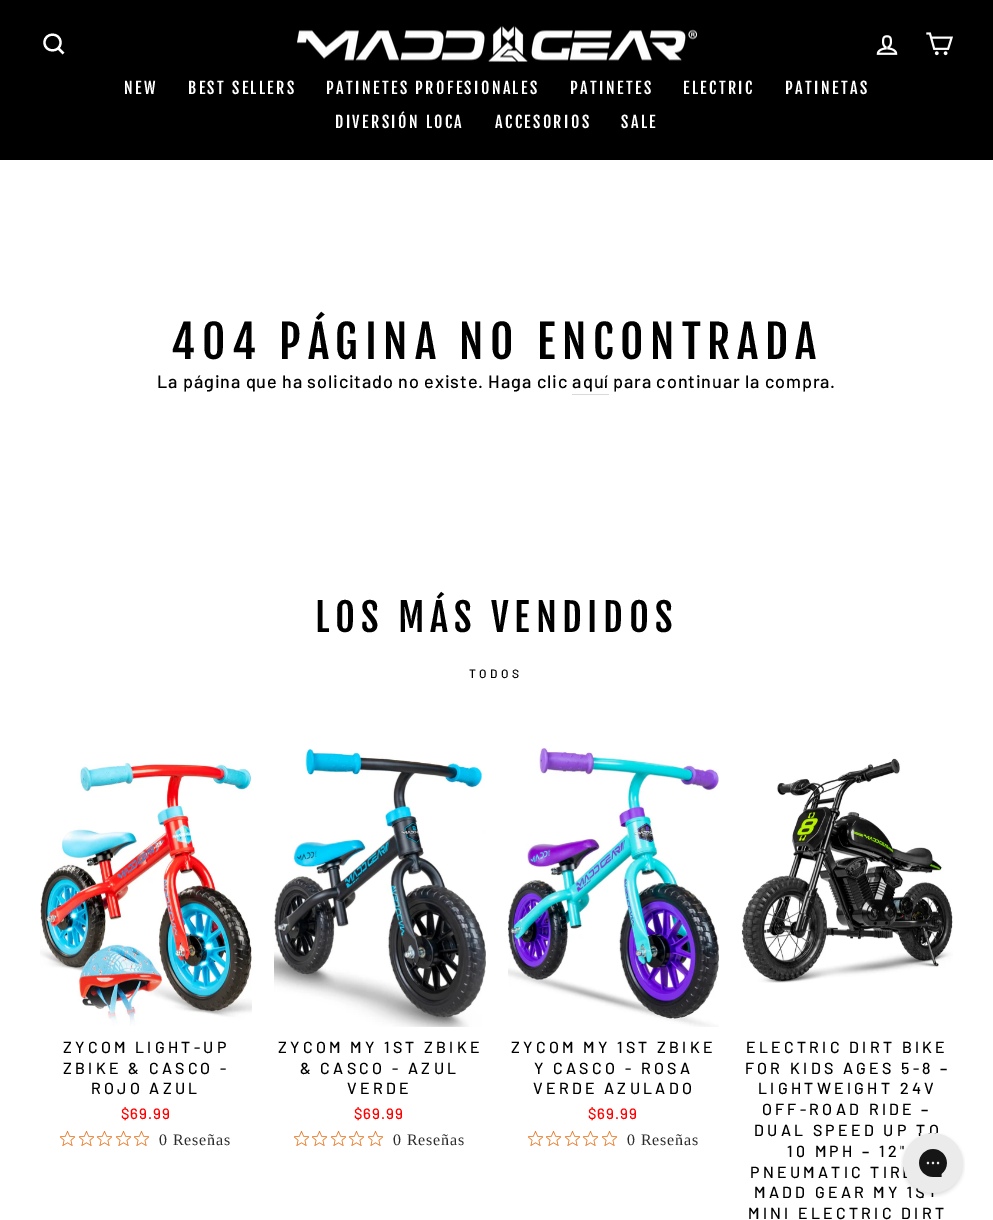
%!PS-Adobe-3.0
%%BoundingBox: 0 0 993 1220
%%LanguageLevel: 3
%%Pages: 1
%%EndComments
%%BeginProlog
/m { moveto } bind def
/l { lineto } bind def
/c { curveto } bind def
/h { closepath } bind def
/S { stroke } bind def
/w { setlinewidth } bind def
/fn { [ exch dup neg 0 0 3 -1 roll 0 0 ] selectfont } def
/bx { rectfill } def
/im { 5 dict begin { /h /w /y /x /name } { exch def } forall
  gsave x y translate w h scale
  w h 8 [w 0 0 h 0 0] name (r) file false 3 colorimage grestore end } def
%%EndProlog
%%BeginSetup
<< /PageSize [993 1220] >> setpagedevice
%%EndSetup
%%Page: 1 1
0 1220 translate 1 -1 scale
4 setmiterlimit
1 setgray
0 0 993 1220 bx
0 setgray
0 0 993 160 bx
1 setgray
2.2 w
60.5 42.5 m 60.5 53 44.5 53 44.5 42.5 c 44.5 32 60.5 32 60.5 42.5 c h 63.5 53.5 m 58.5 48.5 l S
(image0.raw) 297 26 400 36 im
(image1.raw) 876 35 22 20 im
(image2.raw) 926 32 27 24 im
/FjallaOne-Regular 16 fn
124 94 m 2.4 0 (NEW) ashow
188 94 m 2.4 0 (BEST SELLERS) ashow
326 94 m 2.4 0 (PATINETES PROFESIONALES) ashow
570 94 m 2.4 0 (PATINETES) ashow
683 94 m 2.4 0 (ELECTRIC) ashow
785 94 m 2.4 0 (PATINETAS) ashow
335 128 m 2.4 0 (DIVERSIÓN LOCA) ashow
495 128 m 2.4 0 (ACCESORIOS) ashow
621 128 m 2.4 0 (SALE) ashow
/FjallaOne-Regular 45 fn
0 setgray
171 359 m 6.75 0 (404 PÁGINA NO ENCONTRADA) ashow
/Barlow-Medium 18 fn
157 388 m 0.9 0 (La página que ha solicitado no existe. Haga clic aquí) ashow
613 388 m 0.9 0 (para continuar la compra.) ashow
0.851 setgray
572 394 37 1 bx
/FjallaOne-Regular 38.25 fn
0 setgray
315 632 m 5.75 0 (LOS MÁS VENDIDOS) ashow
/Barlow-Medium 12 fn
469 678 m 3.5 0 (TODOS) ashow
(image3.raw) 40 761 212 265 im
/Barlow-Medium 16 fn
63 1053 m 3.25 0 (ZYCOM LIGHT-UP) ashow
63 1074 m 3.25 0 (ZBIKE & CASCO -) ashow
91 1094 m 3.25 0 (ROJO AZUL) ashow
/Barlow-Medium 15 fn
1 0 0 setrgbcolor
121 1119 m 0.9 0 ($69.99) ashow
(image4.raw) 60 1131 15 15 im
(image4.raw) 79 1131 15 15 im
(image4.raw) 97 1131 15 15 im
(image4.raw) 116 1131 15 15 im
(image4.raw) 134 1131 15 15 im
/LiberationSerif-Regular 16 fn
0.173 setgray
159 1145 m 0.9 0 (0 Reseñas) ashow
(image5.raw) 274 748 212 279 im
/Barlow-Medium 16 fn
0 setgray
278 1053 m 3.25 0 (ZYCOM MY 1ST ZBIKE) ashow
300 1074 m 3.25 0 (& CASCO - AZUL) ashow
347 1094 m 3.25 0 (VERDE) ashow
/Barlow-Medium 15 fn
1 0 0 setrgbcolor
354 1119 m 0.9 0 ($69.99) ashow
(image4.raw) 294 1131 15 15 im
(image4.raw) 312 1131 15 15 im
(image4.raw) 331 1131 15 15 im
(image4.raw) 349 1131 15 15 im
(image4.raw) 368 1131 15 15 im
/LiberationSerif-Regular 16 fn
0.173 setgray
393 1145 m 0.9 0 (0 Reseñas) ashow
(image6.raw) 508 748 211 279 im
/Barlow-Medium 16 fn
0 setgray
511 1053 m 3.25 0 (ZYCOM MY 1ST ZBIKE) ashow
534 1074 m 3.25 0 (Y CASCO - ROSA) ashow
533 1094 m 3.25 0 (VERDE AZULADO) ashow
/Barlow-Medium 15 fn
1 0 0 setrgbcolor
588 1119 m 0.9 0 ($69.99) ashow
(image4.raw) 528 1131 15 15 im
(image4.raw) 546 1131 15 15 im
(image4.raw) 565 1131 15 15 im
(image4.raw) 583 1131 15 15 im
(image4.raw) 602 1131 15 15 im
/LiberationSerif-Regular 16 fn
0.173 setgray
627 1145 m 0.9 0 (0 Reseñas) ashow
(image7.raw) 741 758 212 225 im
/Barlow-Medium 16 fn
0 setgray
746 1053 m 3.25 0 (ELECTRIC DIRT BIKE) ashow
745 1074 m 3.25 0 (FOR KIDS AGES 5-8 –) ashow
758 1094 m 3.25 0 (LIGHTWEIGHT 24V) ashow
762 1115 m 3.25 0 (OFF-ROAD RIDE –) ashow
754 1136 m 3.25 0 (DUAL SPEED UP TO) ashow
787 1157 m 3.25 0 (10 MPH – 12") ashow
750 1178 m 3.25 0 (PNEUMATIC TIR) ashow
754 1198 m 3.25 0 (MADD GEAR MY 1S) ashow
748 1219 m 3.25 0 (MINI ELECTRIC DIRT) ashow
(image8.raw) 901 1133 64 64 im
showpage
%%EOF
